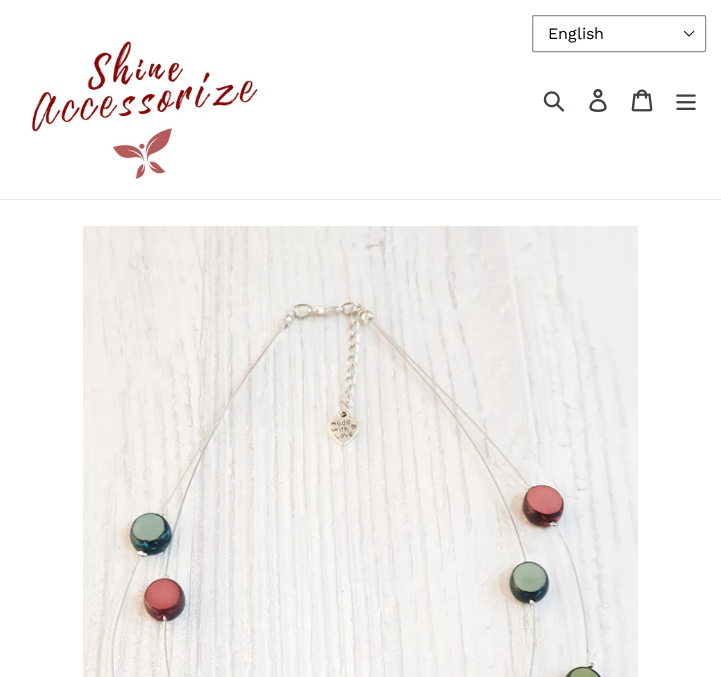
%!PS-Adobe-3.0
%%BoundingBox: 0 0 721 677
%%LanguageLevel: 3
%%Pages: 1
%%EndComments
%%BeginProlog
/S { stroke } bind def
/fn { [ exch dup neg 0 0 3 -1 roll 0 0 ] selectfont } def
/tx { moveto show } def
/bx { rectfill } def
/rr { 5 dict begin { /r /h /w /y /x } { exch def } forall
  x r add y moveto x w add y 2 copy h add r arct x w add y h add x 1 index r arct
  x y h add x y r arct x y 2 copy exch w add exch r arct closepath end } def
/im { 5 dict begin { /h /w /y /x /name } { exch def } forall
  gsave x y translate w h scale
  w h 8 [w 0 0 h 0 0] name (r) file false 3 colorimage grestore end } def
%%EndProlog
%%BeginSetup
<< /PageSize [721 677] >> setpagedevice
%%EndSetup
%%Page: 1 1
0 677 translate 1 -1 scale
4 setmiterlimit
1 setgray
0 0 721 677 bx
(image0.raw) 683 30 12 7 im
0.58 setgray
532.5 15.5 173 36 1.5 rr S
/WorkSans-Regular 16 fn
0 setgray
(English) 548 39 tx
0.91 0.914 0.922 setrgbcolor
0 199 721 1 bx
(image1.raw) 29 37 232 144 im
(image2.raw) 543 91 22 21 im
(image3.raw) 589 89 18 23 im
(image4.raw) 631 89 22 23 im
(image5.raw) 676 94 20 16 im
(image6.raw) 83 226 555 451 im
showpage
%%EOF
